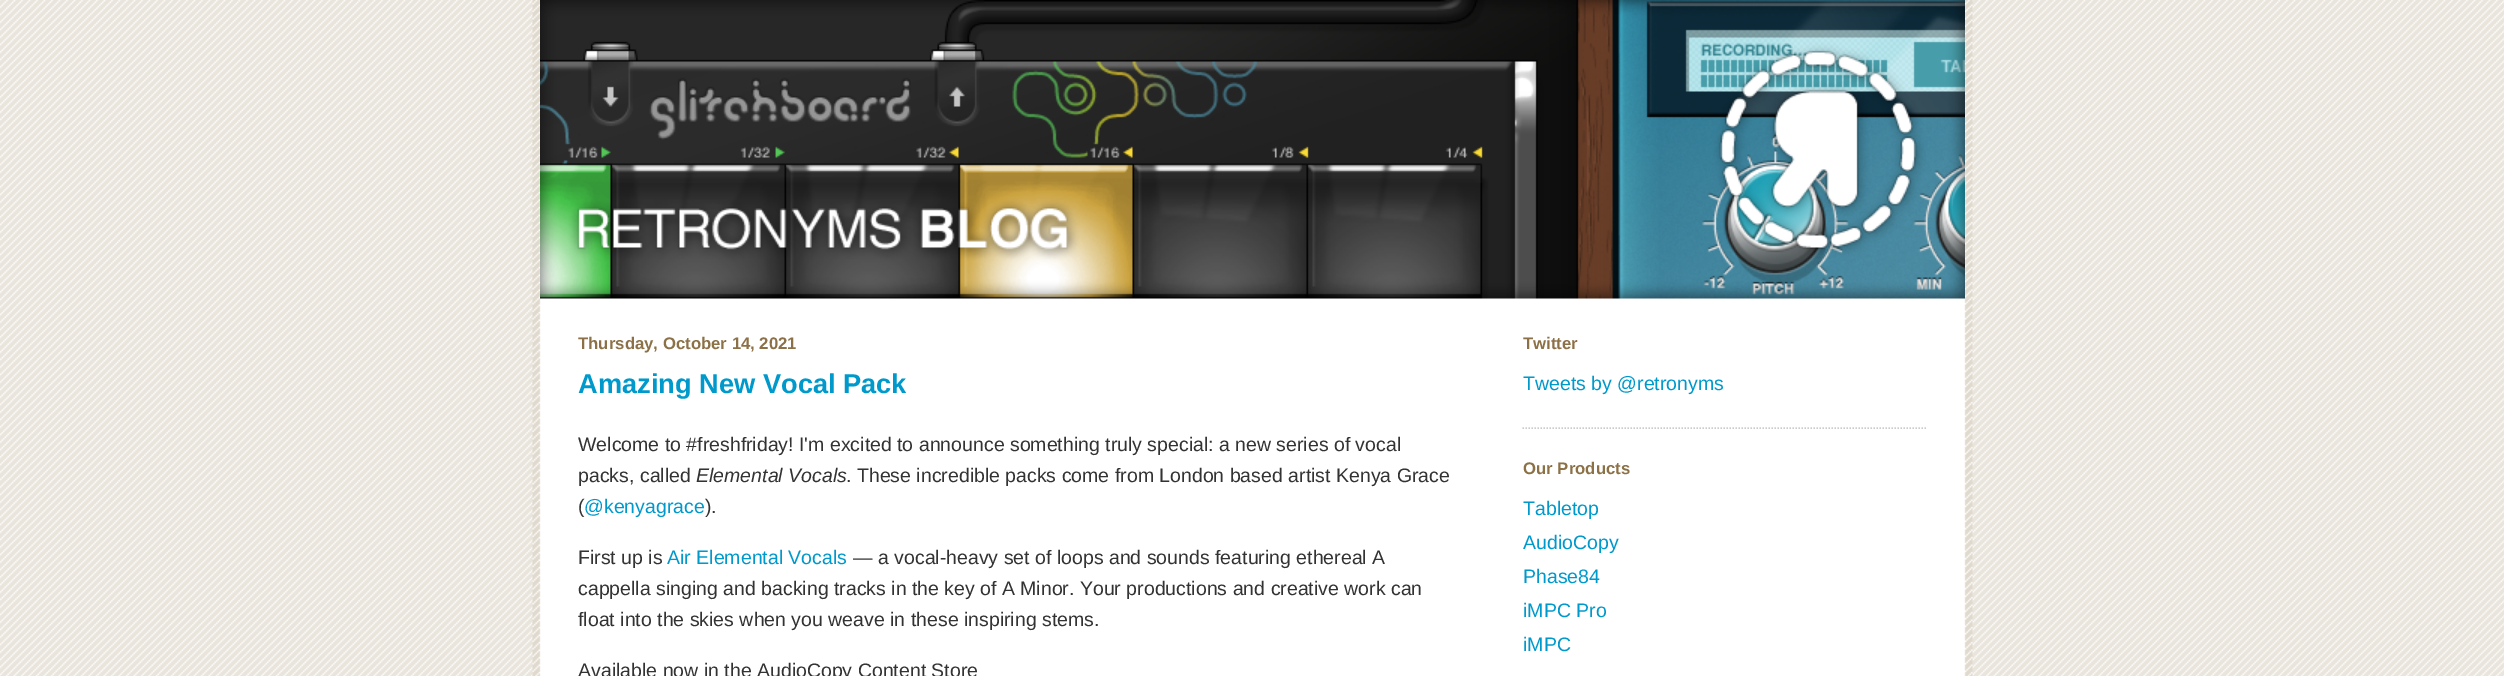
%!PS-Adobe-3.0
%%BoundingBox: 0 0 2504 676
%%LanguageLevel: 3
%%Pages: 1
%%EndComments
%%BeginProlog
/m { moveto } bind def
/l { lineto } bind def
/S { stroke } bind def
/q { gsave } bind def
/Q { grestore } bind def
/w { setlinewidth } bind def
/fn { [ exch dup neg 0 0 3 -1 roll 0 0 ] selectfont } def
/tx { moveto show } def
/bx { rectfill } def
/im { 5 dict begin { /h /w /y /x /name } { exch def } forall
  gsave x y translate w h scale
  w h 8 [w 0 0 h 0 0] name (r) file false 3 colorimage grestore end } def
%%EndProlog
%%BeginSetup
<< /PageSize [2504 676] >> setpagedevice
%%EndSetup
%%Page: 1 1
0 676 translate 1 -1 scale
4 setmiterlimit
1 setgray
0 0 2504 676 bx
(image0.raw) 0 0 2504 676 im
(image1.raw) 532 0 1441 676 im
(image2.raw) 540 0 1425 299 im
q
578 308 877 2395 rectclip
/LiberationSans-Bold 16.75 fn
0.549 0.443 0.278 setrgbcolor
(Thursday, October 14, 2021) 578 349 tx
Q
/LiberationSans-Bold 27.25 fn
0 0.6 0.8 setrgbcolor
(Amazing New Vocal Pack) 578 393 tx
/LiberationSans-Regular 19.5 fn
0.2 setgray
(Welcome to #freshfriday! I'm excited to announce something truly special: a new series of vocal) 578 451 tx
(packs, called) 578 482 tx
/LiberationSans-Italic 19.5 fn
(Elemental Vocals) 696 482 tx
/LiberationSans-Regular 19.5 fn
(. These incredible packs come from London based artist Kenya Grace) 846 482 tx
(\() 578 513 tx
0 0.6 0.8 setrgbcolor
(@kenyagrace) 584 513 tx
0.2 setgray
(\).) 705 513 tx
(First up is) 578 564 tx
0 0.6 0.8 setrgbcolor
(Air Elemental Vocals) 667 564 tx
0.2 setgray
(— a vocal-heavy set of loops and sounds featuring ethereal A) 853 564 tx
(cappella singing and backing tracks in the key of A Minor. Your productions and creative work can) 578 595 tx
(float into the skies when you weave in these inspiring stems.) 578 626 tx
(Available now in the AudioCopy Content Store) 578 677 tx
0.8 setgray
1.5 w
[1.5 1.5] 0 setdash
1522.5 428 m 1927.5 428 l S
q
1523 308 405 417 rectclip
/LiberationSans-Bold 16.75 fn
0.549 0.443 0.278 setrgbcolor
(Twitter) 1523 349 tx
Q
0 0.6 0.8 setrgbcolor
(Tweets by @retronyms) 1523 390 tx
/LiberationSans-Bold 16.75 fn
0.549 0.443 0.278 setrgbcolor
(Our Products) 1523 474 tx
/LiberationSans-Regular 19.5 fn
0 0.6 0.8 setrgbcolor
(Tabletop) 1523 515 tx
(AudioCopy) 1523 549 tx
(Phase84) 1523 583 tx
(iMPC Pro) 1523 617 tx
(iMPC) 1523 651 tx
showpage
%%EOF
